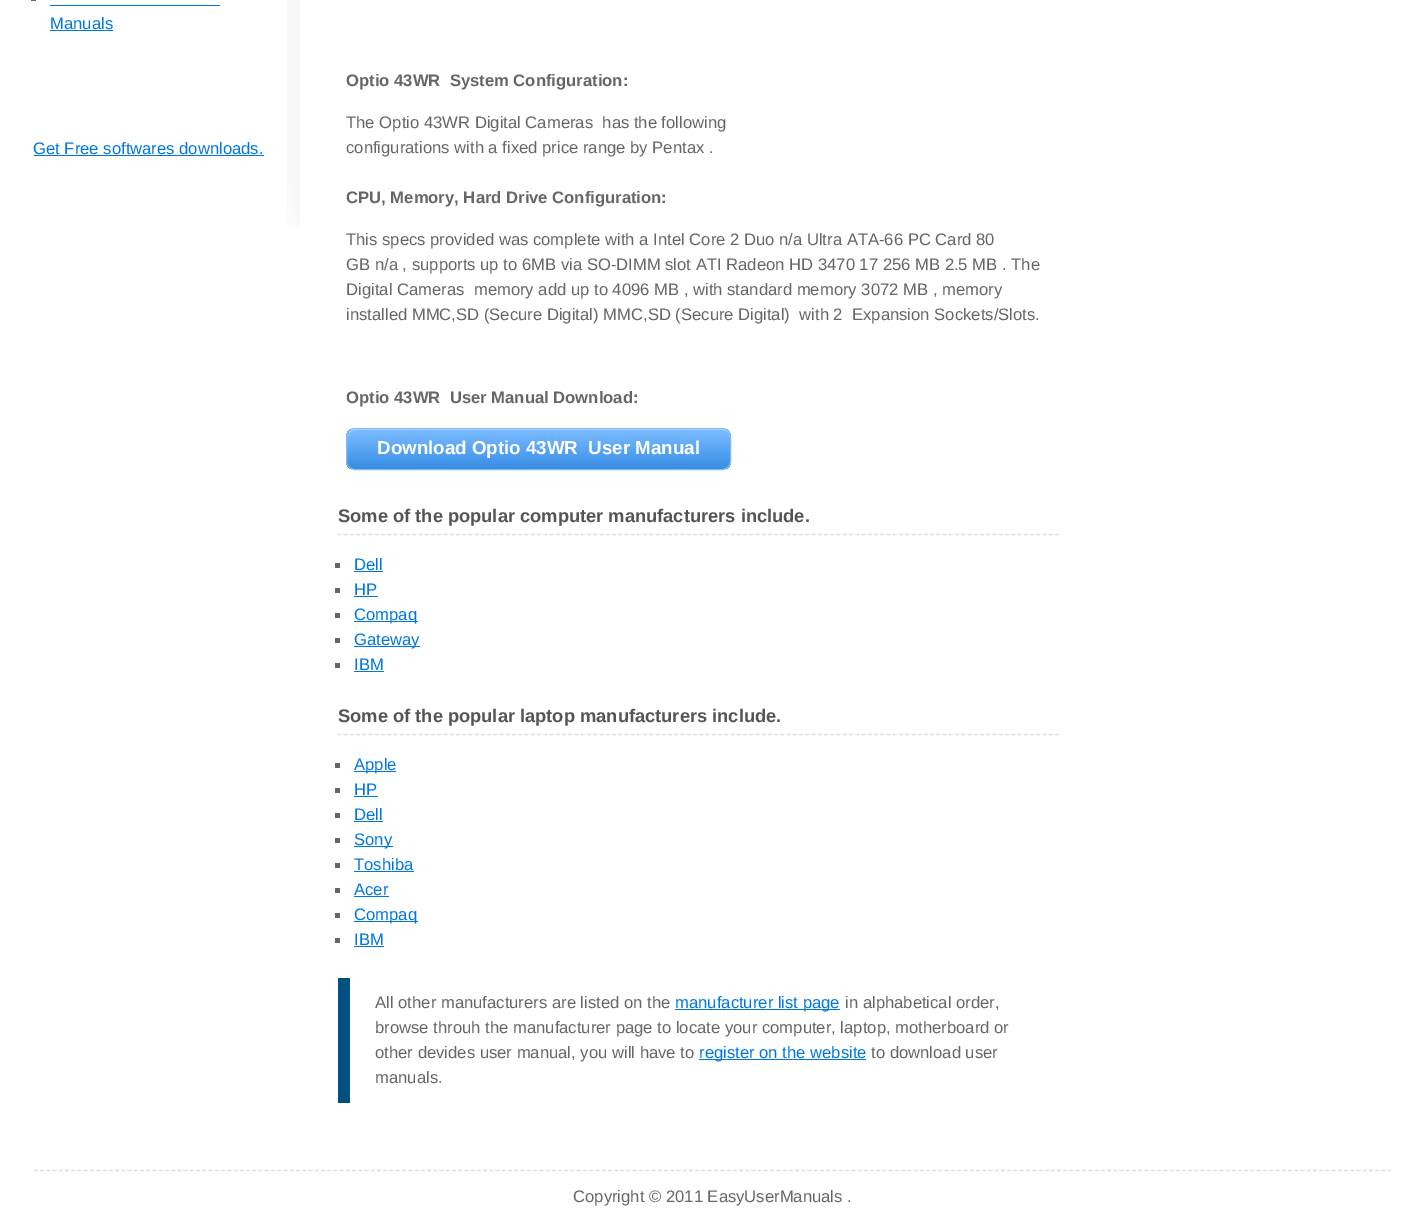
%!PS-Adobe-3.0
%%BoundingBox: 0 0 1424 1223
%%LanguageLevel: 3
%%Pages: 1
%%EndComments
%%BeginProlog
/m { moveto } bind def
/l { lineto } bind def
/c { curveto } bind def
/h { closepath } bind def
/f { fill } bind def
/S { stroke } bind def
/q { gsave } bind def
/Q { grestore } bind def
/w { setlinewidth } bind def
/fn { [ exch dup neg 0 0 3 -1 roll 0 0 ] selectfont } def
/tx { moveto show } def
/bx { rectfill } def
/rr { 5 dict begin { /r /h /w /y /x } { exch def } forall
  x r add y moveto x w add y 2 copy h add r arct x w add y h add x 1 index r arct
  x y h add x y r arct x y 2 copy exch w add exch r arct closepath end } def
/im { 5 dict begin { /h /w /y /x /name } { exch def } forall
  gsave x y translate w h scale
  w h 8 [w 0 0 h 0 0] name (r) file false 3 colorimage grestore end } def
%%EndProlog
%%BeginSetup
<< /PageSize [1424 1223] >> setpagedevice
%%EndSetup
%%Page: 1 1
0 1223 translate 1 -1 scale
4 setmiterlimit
1 setgray
0 0 1424 1223 bx
0.973 setgray
287 0 13 186 bx
0.4 setgray
31 0 5 1 bx
/LiberationSans-Regular 16.65 fn
0 0.467 0.867 setrgbcolor
(Manuals) 50 29 tx
50 5 170 1 bx
50 30 63 1 bx
(Get Free softwares downloads.) 33 154 tx
34 155 230 1 bx
(image0.raw) 287 186 13 41 im
/LiberationSans-Bold 16.65 fn
0.4 setgray
(Optio 43WR  System Configuration:) 346 86 tx
/LiberationSans-Regular 16.65 fn
(The Optio 43WR Digital Cameras  has the following) 346 128 tx
(configurations with a fixed price range by Pentax .) 346 153 tx
/LiberationSans-Bold 16.65 fn
(CPU, Memory, Hard Drive Configuration:) 346 203 tx
/LiberationSans-Regular 16.65 fn
(This specs provided was complete with a Intel Core 2 Duo n/a Ultra ATA-66 PC Card 80) 346 245 tx
(GB n/a , supports up to 6MB via SO-DIMM slot ATI Radeon HD 3470 17 256 MB 2.5 MB . The) 346 270 tx
(Digital Cameras  memory add up to 4096 MB , with standard memory 3072 MB , memory) 346 295 tx
(installed MMC,SD \(Secure Digital\) MMC,SD \(Secure Digital\)  with 2  Expansion Sockets/Slots.) 346 320 tx
/LiberationSans-Bold 16.65 fn
(Optio 43WR  User Manual Download:) 346 403 tx
q
346 428 385 42 9 rr clip newpath
q 346 429 m 731 429 l 731 469 l 346 469 l h clip newpath
<< /ShadingType 2 /ColorSpace /DeviceRGB /Coords [348 429 348 469] /Extend [true true] /Function << /FunctionType 3 /Domain [0 1] /Functions [<< /FunctionType 2 /Domain [0 1] /C0 [0.475 0.733 1] /C1 [0.475 0.733 1] /N 1 >> << /FunctionType 2 /Domain [0 1] /C0 [0.475 0.733 1] /C1 [0.216 0.553 0.898] /N 1 >>] /Bounds [0.05] /Encode [0 1 0 1] >> >> shfill Q
Q
0.733 0.855 0.969 setrgbcolor
355 430 m 722 430 l 727 430 730 433 730 438 c 730 433 727 429 722 429 c 356 429 l 351 429 348 433 348 438 c 348 433 351 430 355 430 c h f
0.518 0.733 0.953 setrgbcolor
346.5 428.5 384 41 8.5 rr S
/LiberationSans-Bold 18.75 fn
1 setgray
(Download Optio 43WR  User Manual) 377 454 tx
0.875 setgray
1.2 w
[3.75 2.49] 0 setdash
337.5 534.5 m 1059 534.5 l S
/LiberationSans-Bold 18.3 fn
0.329 setgray
(Some of the popular computer manufacturers include.) 338 522 tx
0.4 setgray
335 563 5 5 bx
/LiberationSans-Regular 16.65 fn
0 0.467 0.867 setrgbcolor
(Dell) 354 570 tx
354 571 29 1 bx
0.4 setgray
335 588 5 5 bx
0 0.467 0.867 setrgbcolor
(HP) 354 595 tx
354 596 24 1 bx
0.4 setgray
335 613 5 5 bx
0 0.467 0.867 setrgbcolor
354 621 64 1 bx
(Compaq) 354 620 tx
0.4 setgray
335 638 5 5 bx
0 0.467 0.867 setrgbcolor
354 646 66 1 bx
(Gateway) 354 645 tx
0.4 setgray
335 663 5 5 bx
0 0.467 0.867 setrgbcolor
(IBM) 354 670 tx
354 671 30 1 bx
0.875 setgray
337.5 734.5 m 1059 734.5 l S
/LiberationSans-Bold 18.3 fn
0.329 setgray
(Some of the popular laptop manufacturers include.) 338 722 tx
0.4 setgray
335 763 5 5 bx
0 0.467 0.867 setrgbcolor
354 771 42 1 bx
/LiberationSans-Regular 16.65 fn
(Apple) 354 770 tx
0.4 setgray
335 788 5 5 bx
0 0.467 0.867 setrgbcolor
(HP) 354 795 tx
354 796 24 1 bx
0.4 setgray
335 813 5 5 bx
0 0.467 0.867 setrgbcolor
(Dell) 354 820 tx
354 821 29 1 bx
0.4 setgray
335 838 5 5 bx
0 0.467 0.867 setrgbcolor
354 846 39 1 bx
(Sony) 354 845 tx
0.4 setgray
335 863 5 5 bx
0 0.467 0.867 setrgbcolor
(Toshiba) 354 870 tx
354 871 60 1 bx
0.4 setgray
335 888 5 5 bx
0 0.467 0.867 setrgbcolor
(Acer) 354 895 tx
354 896 35 1 bx
0.4 setgray
335 913 5 5 bx
0 0.467 0.867 setrgbcolor
354 921 64 1 bx
(Compaq) 354 920 tx
0.4 setgray
335 938 5 5 bx
0 0.467 0.867 setrgbcolor
(IBM) 354 945 tx
354 946 30 1 bx
0 0.314 0.51 setrgbcolor
338 978 12 125 bx
0.4 setgray
(All other manufacturers are listed on the) 375 1008 tx
0 0.467 0.867 setrgbcolor
675 1009 165 1 bx
(manufacturer list page) 675 1008 tx
0.4 setgray
(in alphabetical order,) 845 1008 tx
(browse throuh the manufacturer page to locate your computer, laptop, motherboard or) 375 1033 tx
(other devides user manual, you will have to) 375 1058 tx
0 0.467 0.867 setrgbcolor
699 1059 167 1 bx
(register on the website) 699 1058 tx
0.4 setgray
(to download user) 871 1058 tx
(manuals.) 375 1083 tx
0.875 setgray
34 1170.5 m 1391 1170.5 l S
0.4 setgray
(Copyright © 2011 EasyUserManuals .) 573 1202 tx
showpage
%%EOF
